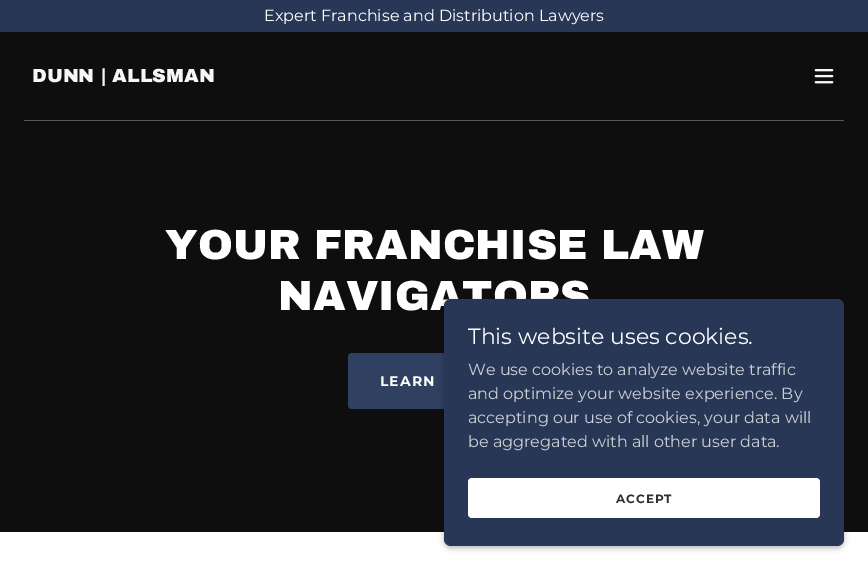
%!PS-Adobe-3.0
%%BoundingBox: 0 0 868 570
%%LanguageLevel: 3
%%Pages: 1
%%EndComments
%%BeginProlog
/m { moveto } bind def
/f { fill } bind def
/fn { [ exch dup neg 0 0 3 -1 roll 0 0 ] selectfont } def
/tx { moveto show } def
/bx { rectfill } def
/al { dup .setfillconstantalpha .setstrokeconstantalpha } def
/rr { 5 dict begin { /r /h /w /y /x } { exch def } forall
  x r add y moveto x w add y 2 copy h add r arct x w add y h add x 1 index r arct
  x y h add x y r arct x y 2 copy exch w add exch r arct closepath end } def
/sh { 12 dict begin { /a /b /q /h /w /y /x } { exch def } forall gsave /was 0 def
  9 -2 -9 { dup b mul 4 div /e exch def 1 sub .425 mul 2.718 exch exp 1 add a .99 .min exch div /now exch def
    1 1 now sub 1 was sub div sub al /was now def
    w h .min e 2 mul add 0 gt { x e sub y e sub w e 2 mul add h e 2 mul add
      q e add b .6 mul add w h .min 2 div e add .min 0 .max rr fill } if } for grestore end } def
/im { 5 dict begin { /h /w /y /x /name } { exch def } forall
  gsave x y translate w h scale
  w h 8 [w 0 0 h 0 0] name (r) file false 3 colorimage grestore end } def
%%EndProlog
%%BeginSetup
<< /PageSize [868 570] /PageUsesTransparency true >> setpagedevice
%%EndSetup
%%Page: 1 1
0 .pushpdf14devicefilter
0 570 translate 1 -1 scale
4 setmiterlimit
1 setgray
0 0 868 570 bx
0.153 0.216 0.333 setrgbcolor
0 0 868 32 bx
/Montserrat-Regular 16 fn
1 setgray
(Expert Franchise and Distribution Lawyers) 264 21 tx
0.055 setgray
0 32 868 500 bx
/ArchivoBlack-Black 19 fn
0.969 setgray
(DUNN | ALLSMAN) 32 82 tx
(image0.raw) 814 69 20 15 im
0.337 setgray
24 120 820 1 bx
/ArchivoBlack-Black 42 fn
1 setgray
(YOUR FRANCHISE LAW) 165 259 tx
(NAVIGATORS) 278 310 tx
0.188 0.251 0.38 setrgbcolor
348 353 172 56 4 rr f
/Montserrat-Bold 14 fn
1 setgray
380 386 m 1 0 (LEARN) ashow
0 setgray
444 301 400 247 7 3 0.3 sh
0.153 0.216 0.333 setrgbcolor
444 299 400 247 7 rr f
/Montserrat-Regular 22 fn
1 setgray
(This website uses cookies.) 468 344 tx
/Montserrat-Regular 16 fn
0.804 0.812 0.835 setrgbcolor
(We use cookies to analyze website traffic) 468 375 tx
(and optimize your website experience. By) 468 399 tx
(accepting our use of cookies, your data will) 468 423 tx
(be aggregated with all other user data.) 468 447 tx
1 setgray
468 478 352 40 4 rr f
/Montserrat-Bold 12 fn
0.188 setgray
616 503 m 1 0 (ACCEPT) ashow
.poppdf14devicefilter showpage
%%EOF
